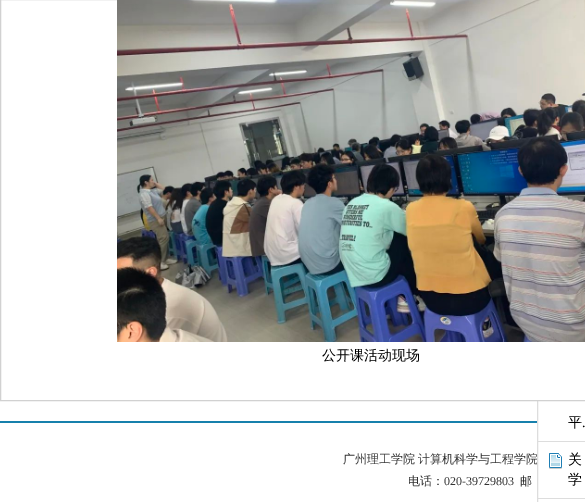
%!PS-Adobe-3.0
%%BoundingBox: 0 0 585 502
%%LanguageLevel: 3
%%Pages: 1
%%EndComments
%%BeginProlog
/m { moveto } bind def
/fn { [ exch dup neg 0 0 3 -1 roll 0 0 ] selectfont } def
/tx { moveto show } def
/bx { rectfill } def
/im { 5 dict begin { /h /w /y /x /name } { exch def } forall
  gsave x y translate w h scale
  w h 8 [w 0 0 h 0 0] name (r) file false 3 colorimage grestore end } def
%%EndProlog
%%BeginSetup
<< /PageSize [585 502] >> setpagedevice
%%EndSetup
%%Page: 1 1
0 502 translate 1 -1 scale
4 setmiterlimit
1 setgray
0 0 585 502 bx
/WenQuanYiZenHei-Medium 12 fn
0.2 setgray
343 463 m -1 0 32 (广州理工学院 计算机科学与工程学院) widthshow
0.867 setgray
537.5 54.5 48 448 rectstroke
1 setgray
537 54 48 346 bx
0.82 setgray
0.5 -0.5 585 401 rectstroke
(image0.raw) 117 0 468 342 im
/WenQuanYiZenHei-Medium 14 fn
0 setgray
(公开课活动现场) 322 360 tx
0.867 setgray
537 441 48 1 bx
0 setgray
(平) 568 427 tx
/LiberationSerif-Regular 14 fn
(.) 582 427 tx
(image1.raw) 549 453 13 16 im
0.867 setgray
537 498 48 1 bx
/WenQuanYiZenHei-Medium 14 fn
0 setgray
(关) 568 464 tx
(学) 568 484 tx
0.09 0.502 0.675 setrgbcolor
0 421 537 2 bx
/WenQuanYiZenHei-Medium 12 fn
0.2 setgray
(电话：) 408 485 tx
/LiberationSerif-Regular 12 fn
(020-39729803) 444 485 tx
/WenQuanYiZenHei-Medium 12 fn
(邮) 520 485 tx
showpage
%%EOF
